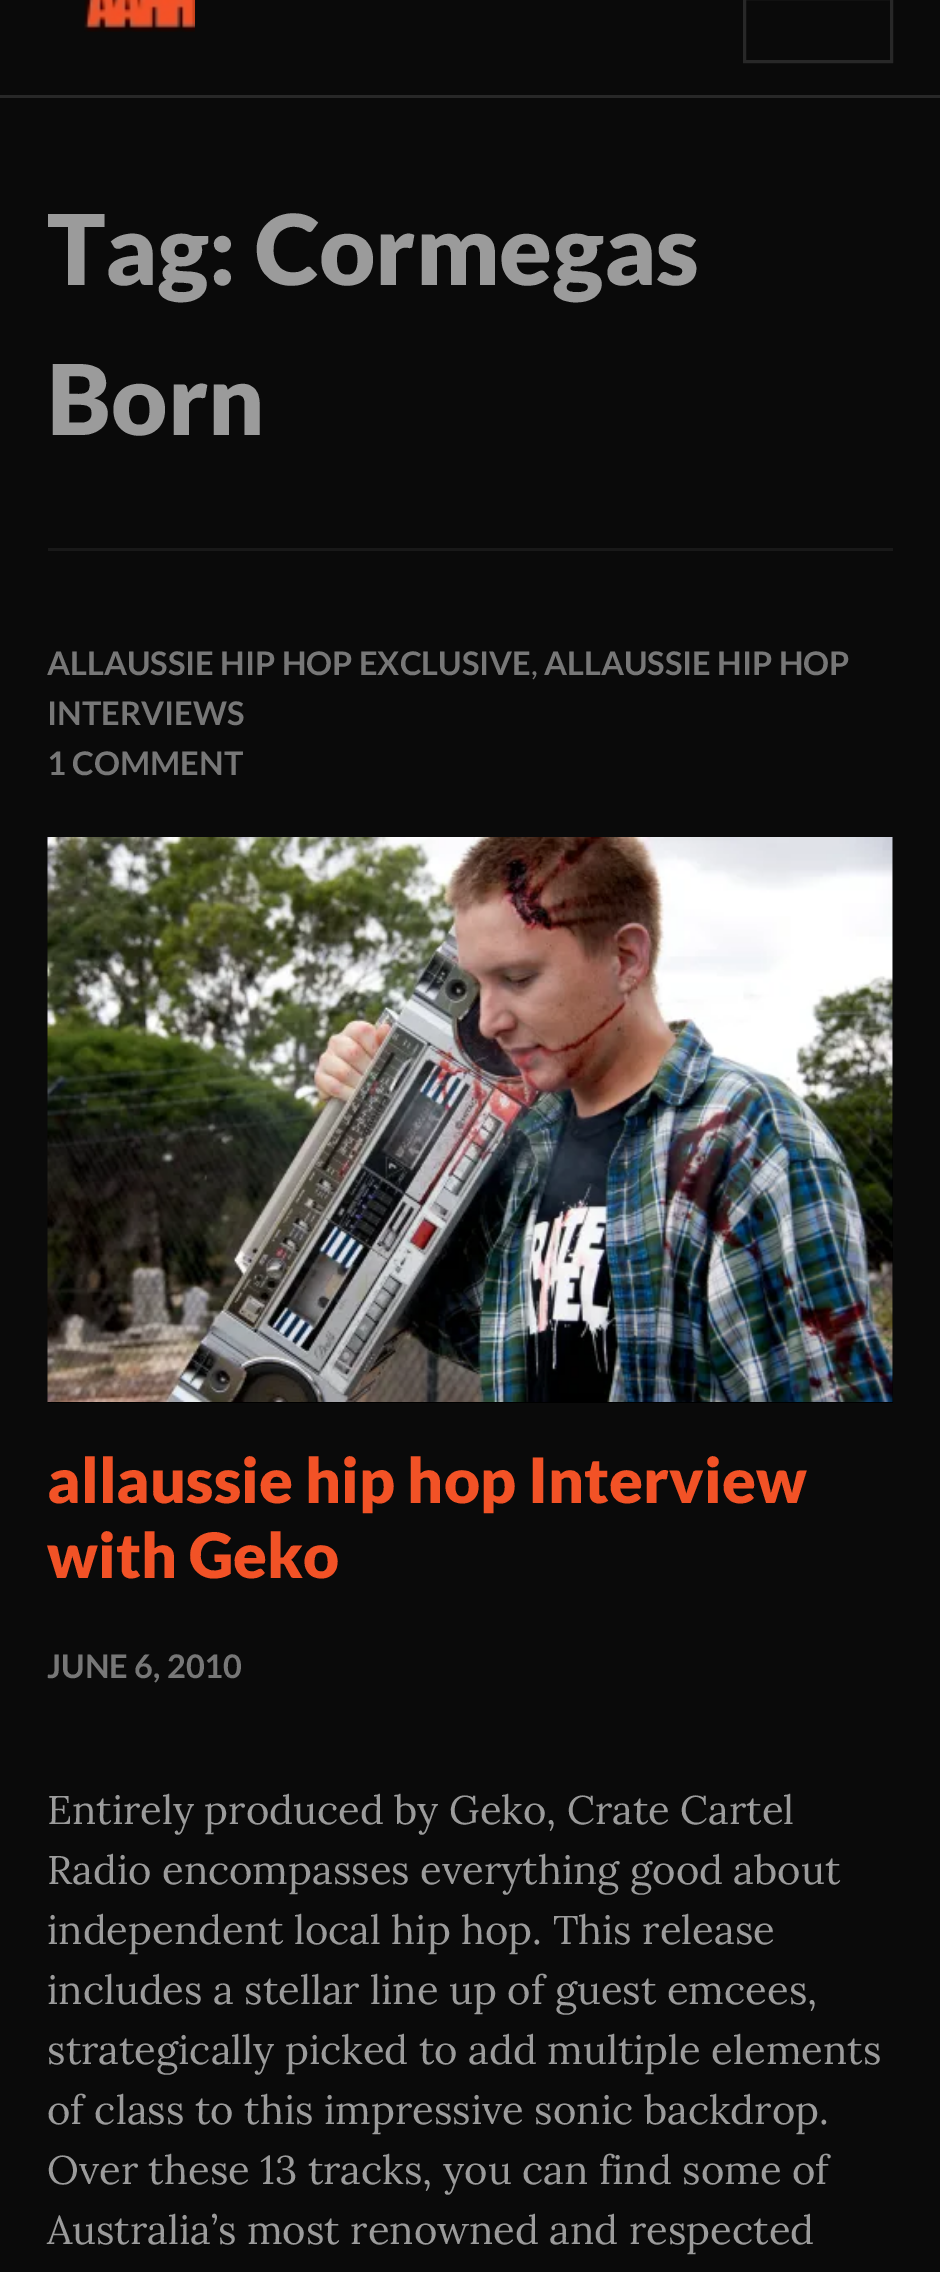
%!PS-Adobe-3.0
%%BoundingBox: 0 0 940 2272
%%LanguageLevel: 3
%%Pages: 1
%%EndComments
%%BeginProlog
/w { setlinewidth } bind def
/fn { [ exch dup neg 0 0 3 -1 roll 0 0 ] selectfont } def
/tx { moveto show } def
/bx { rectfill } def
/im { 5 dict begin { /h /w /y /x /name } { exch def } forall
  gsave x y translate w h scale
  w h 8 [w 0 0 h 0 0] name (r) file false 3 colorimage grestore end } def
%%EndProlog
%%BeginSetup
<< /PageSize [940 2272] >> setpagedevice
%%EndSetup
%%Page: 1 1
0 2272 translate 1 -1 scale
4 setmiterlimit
0.039 setgray
0 0 940 2272 bx
0.157 setgray
0 95 940 3 bx
(image0.raw) 84 0 111 32 im
3 w
744.5 -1.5 147 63 rectstroke
0.098 setgray
48 548 845 3 bx
/Lato-Black 97.5 fn
0.608 setgray
(Tag: Cormegas) 47 285 tx
(Born) 47 435 tx
/Lato-Bold 32.5 fn
0.467 setgray
(ALLAUSSIE HIP HOP EXCLUSIVE) 47 675 tx
/Lato-Regular 32.5 fn
(,) 531 675 tx
/Lato-Bold 32.5 fn
(ALLAUSSIE HIP HOP) 544 675 tx
(INTERVIEWS) 47 725 tx
(1 COMMENT) 47 775 tx
0 setgray
48 838 845 565 bx
(image1.raw) 47 837 846 565 im
/Lato-Black 62.5 fn
0.949 0.322 0.149 setrgbcolor
(allaussie hip hop Interview) 47 1503 tx
(with Geko) 47 1578 tx
/Lato-Bold 32.5 fn
0.467 setgray
(JUNE 6, 2010) 47 1678 tx
/Lora-Regular 40 fn
0.608 setgray
(Entirely produced by Geko, Crate Cartel) 47 1824 tx
(Radio encompasses everything good about) 47 1884 tx
(independent local hip hop. This release) 47 1944 tx
(includes a stellar line up of guest emcees,) 47 2004 tx
(strategically picked to add multiple elements) 47 2064 tx
(of class to this impressive sonic backdrop.) 47 2124 tx
(Over these 13 tracks, you can find some of) 47 2184 tx
(Australia’s most renowned and respected) 47 2244 tx
showpage
%%EOF
